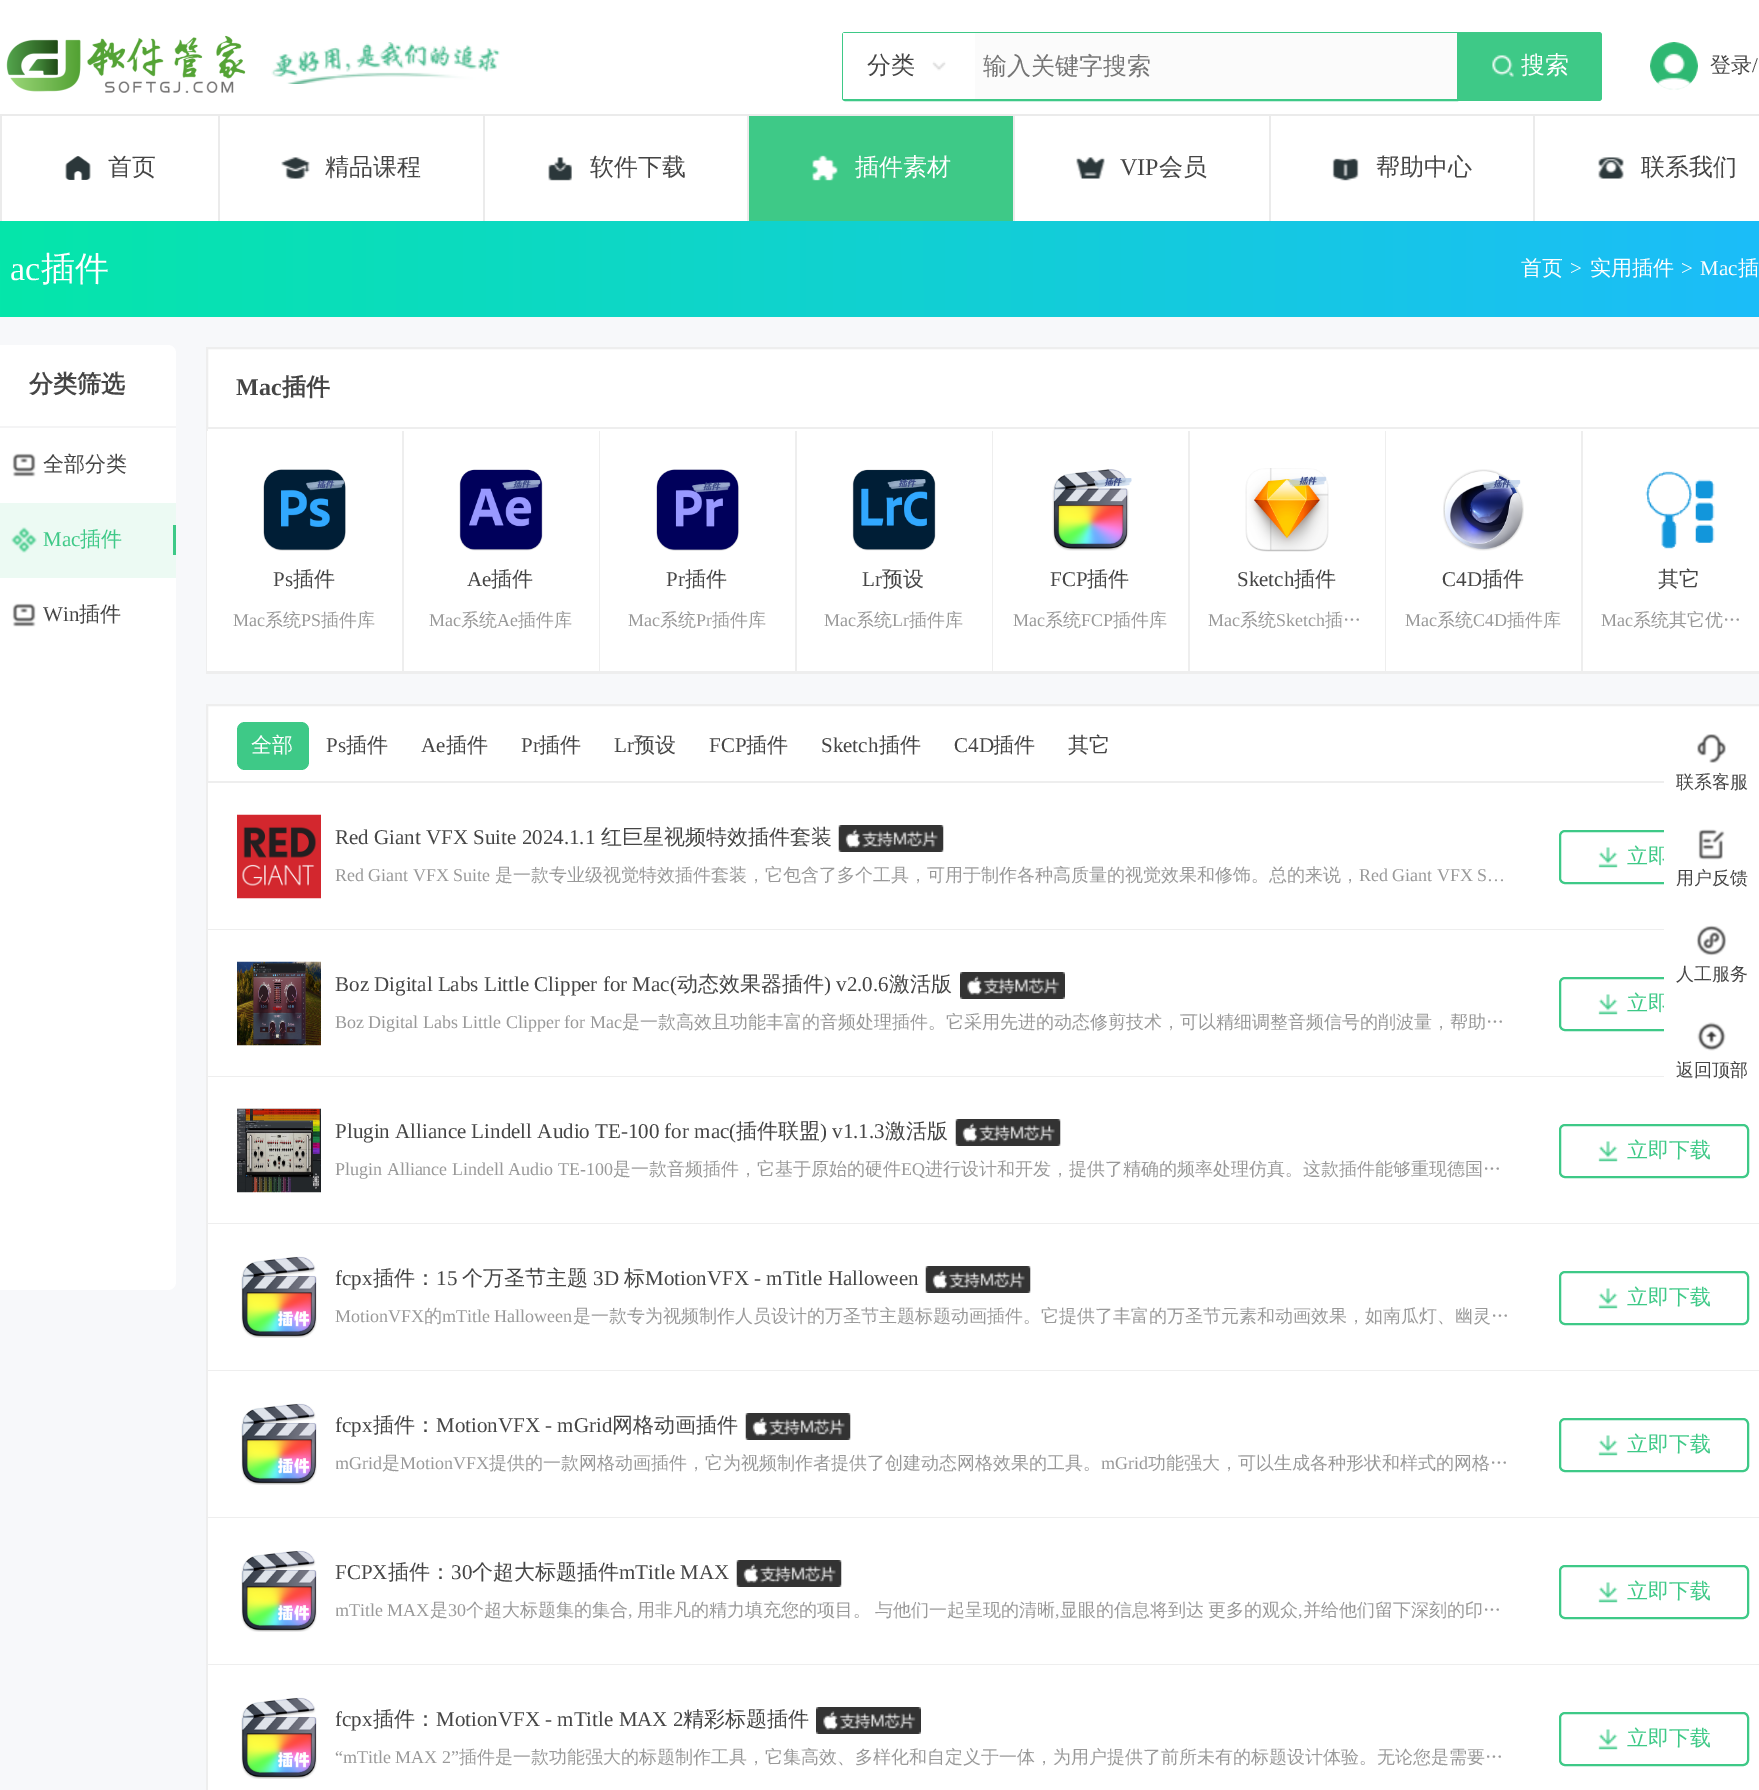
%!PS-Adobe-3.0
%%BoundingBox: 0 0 1759 1790
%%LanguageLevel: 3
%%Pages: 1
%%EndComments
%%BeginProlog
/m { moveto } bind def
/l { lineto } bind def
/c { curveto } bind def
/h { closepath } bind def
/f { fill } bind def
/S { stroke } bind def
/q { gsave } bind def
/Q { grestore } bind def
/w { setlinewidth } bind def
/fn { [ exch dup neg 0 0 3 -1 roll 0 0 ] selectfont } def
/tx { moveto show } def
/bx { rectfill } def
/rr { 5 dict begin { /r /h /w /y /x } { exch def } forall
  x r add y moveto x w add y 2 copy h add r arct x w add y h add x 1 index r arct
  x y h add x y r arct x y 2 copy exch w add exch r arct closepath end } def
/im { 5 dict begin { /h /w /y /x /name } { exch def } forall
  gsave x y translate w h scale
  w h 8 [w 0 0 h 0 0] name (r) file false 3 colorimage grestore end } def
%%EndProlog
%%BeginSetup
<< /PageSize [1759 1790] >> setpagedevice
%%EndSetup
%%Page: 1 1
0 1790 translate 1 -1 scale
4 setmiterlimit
0.969 0.973 0.98 setrgbcolor
0 0 1759 1790 bx
1 setgray
0 0 1759 219 bx
(image0.raw) 6 35 240 58 im
(image1.raw) 271 42 229 42 im
0.243 0.788 0.529 setrgbcolor
2 w
845 33 m 1457 33 l 1457 100 l 845 100 l 844 100 843 99 843 98 c 843 35 l 843 34 844 33 845 33 c h S
1 setgray
843 33 132 66 bx
/WenQuanYiZenHei-Medium 24 fn
0.271 setgray
(分类) 867 73 tx
(image2.raw) 932 61 14 10 im
0.984 setgray
975 33 482 66 bx
0.459 setgray
(输入关键字搜索) 983 74 tx
0.243 0.788 0.529 setrgbcolor
1458 32 m 1599 32 l 1600.5 32 1602 33.5 1602 35 c 1602 98 l 1602 99.5 1600.5 101 1599 101 c 1458 101 l h f
(image3.raw) 1492 55 22 22 im
1 setgray
(搜索) 1521 73 tx
(image4.raw) 1650 42 48 48 im
/WenQuanYiZenHei-Medium 21 fn
0.271 setgray
(登录) 1710 72 tx
/LiberationSerif-Regular 21 fn
(/) 1752 72 tx
0.922 setgray
0 114 1759 2 bx
1 setgray
0 219 1759 2 bx
0.922 setgray
0 116 2 105 bx
(image5.raw) 65 156 26 24 im
/WenQuanYiZenHei-Medium 24 fn
0.271 setgray
(首页) 108 175 tx
0.922 setgray
218 116 2 105 bx
(image6.raw) 281 157 29 22 im
0.271 setgray
(精品课程) 325 175 tx
0.922 setgray
483 116 2 105 bx
(image7.raw) 548 157 24 24 im
0.271 setgray
(软件下载) 590 175 tx
0.243 0.788 0.529 setrgbcolor
749 116 264 105 bx
0.922 setgray
747 116 2 105 bx
(image8.raw) 812 155 26 26 im
1 setgray
(插件素材) 855 175 tx
0.922 setgray
1013 116 2 105 bx
(image9.raw) 1076 157 29 22 im
/LiberationSerif-Regular 24 fn
0.271 setgray
(VIP) 1120 175 tx
/WenQuanYiZenHei-Medium 24 fn
(会员) 1159 175 tx
0.922 setgray
1269 116 2 105 bx
(image10.raw) 1332 158 27 23 im
0.271 setgray
(帮助中心) 1376 175 tx
0.922 setgray
1533 116 2 105 bx
(image11.raw) 1598 157 26 22 im
0.271 setgray
(联系我们) 1641 175 tx
q 0 221 m 1759 221 l 1759 317 l 0 317 l h clip newpath
<< /ShadingType 2 /ColorSpace /DeviceRGB /Coords [0 269 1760 268] /Extend [true true] /Function << /FunctionType 2 /Domain [0 1] /C0 [0.02 0.902 0.667] /C1 [0.11 0.741 0.976] /N 1 >> >> shfill Q
/LiberationSerif-Regular 34 fn
1 setgray
(ac) 10 280 tx
/WenQuanYiZenHei-Medium 34 fn
(插件) 41 280 tx
/WenQuanYiZenHei-Medium 21 fn
(首页) 1521 275 tx
/LiberationSerif-Regular 21 fn
(>) 1570 275 tx
/WenQuanYiZenHei-Medium 21 fn
(实用插件) 1590 275 tx
/LiberationSerif-Regular 21 fn
(>) 1681 275 tx
(Mac) 1700 275 tx
/WenQuanYiZenHei-Medium 21 fn
(插) 1738 275 tx
-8 345 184 945 8 rr f
0.957 0.957 0.961 setrgbcolor
0 426 176 2 bx
/WenQuanYiZenHei-Bold 24 fn
0.271 setgray
(分类筛选) 29 392 tx
(image12.raw) 12 453 24 24 im
/WenQuanYiZenHei-Medium 21 fn
(全部分类) 43 471 tx
0.925 0.98 0.953 setrgbcolor
0 503 176 75 bx
(image13.raw) 11 527 26 26 im
/LiberationSerif-Regular 21 fn
0.243 0.788 0.529 setrgbcolor
(Mac) 43 546 tx
/WenQuanYiZenHei-Medium 21 fn
(插件) 80 546 tx
173 525 3 30 bx
(image12.raw) 12 603 24 24 im
/LiberationSerif-Regular 21 fn
0.271 setgray
(Win) 43 621 tx
/WenQuanYiZenHei-Medium 21 fn
(插件) 79 621 tx
1 setgray
207 348 m 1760 348 l 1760 428 l 207 428 l h q f Q
0.933 setgray
S
/LiberationSerif-Bold 24 fn
0.271 setgray
(Mac) 236 395 tx
/WenQuanYiZenHei-Bold 24 fn
(插件) 282 395 tx
1 setgray
208 429 1551 242 bx
0.933 setgray
206 672 1553 2 bx
206 429 2 245 bx
1 setgray
207 431 1 240 bx
0.933 setgray
402 431 2 241 bx
207 671 197 1 bx
(image14.raw) 263 469 83 82 im
/LiberationSerif-Regular 21 fn
0.271 setgray
(Ps) 273 586 tx
/WenQuanYiZenHei-Medium 21 fn
(插件) 293 586 tx
/LiberationSerif-Regular 18 fn
0.6 setgray
(Mac) 233 626 tx
/WenQuanYiZenHei-Medium 18 fn
(系统) 265 626 tx
/LiberationSerif-Regular 18 fn
(PS) 301 626 tx
/WenQuanYiZenHei-Medium 18 fn
(插件库) 321 626 tx
0.933 setgray
599 431 1 241 bx
404 671 196 1 bx
(image15.raw) 459 469 84 82 im
/LiberationSerif-Regular 21 fn
0.271 setgray
(Ae) 467 586 tx
/WenQuanYiZenHei-Medium 21 fn
(插件) 491 586 tx
/LiberationSerif-Regular 18 fn
0.6 setgray
(Mac) 429 626 tx
/WenQuanYiZenHei-Medium 18 fn
(系统) 461 626 tx
/LiberationSerif-Regular 18 fn
(Ae) 497 626 tx
/WenQuanYiZenHei-Medium 18 fn
(插件库) 518 626 tx
0.933 setgray
795 431 2 241 bx
600 671 197 1 bx
(image16.raw) 656 469 83 82 im
/LiberationSerif-Regular 21 fn
0.271 setgray
(Pr) 666 586 tx
/WenQuanYiZenHei-Medium 21 fn
(插件) 685 586 tx
/LiberationSerif-Regular 18 fn
0.6 setgray
(Mac) 628 626 tx
/WenQuanYiZenHei-Medium 18 fn
(系统) 660 626 tx
/LiberationSerif-Regular 18 fn
(Pr) 696 626 tx
/WenQuanYiZenHei-Medium 18 fn
(插件库) 712 626 tx
0.933 setgray
992 431 1 241 bx
797 671 196 1 bx
(image17.raw) 852 469 84 82 im
/LiberationSerif-Regular 21 fn
0.271 setgray
(Lr) 862 586 tx
/WenQuanYiZenHei-Medium 21 fn
(预设) 882 586 tx
/LiberationSerif-Regular 18 fn
0.6 setgray
(Mac) 824 626 tx
/WenQuanYiZenHei-Medium 18 fn
(系统) 856 626 tx
/LiberationSerif-Regular 18 fn
(Lr) 892 626 tx
/WenQuanYiZenHei-Medium 18 fn
(插件库) 909 626 tx
0.933 setgray
1188 431 2 241 bx
993 671 197 1 bx
(image18.raw) 1052 469 80 82 im
/LiberationSerif-Regular 21 fn
0.271 setgray
(FCP) 1050 586 tx
/WenQuanYiZenHei-Medium 21 fn
(插件) 1087 586 tx
/LiberationSerif-Regular 18 fn
0.6 setgray
(Mac) 1013 626 tx
/WenQuanYiZenHei-Medium 18 fn
(系统) 1045 626 tx
/LiberationSerif-Regular 18 fn
(FCP) 1081 626 tx
/WenQuanYiZenHei-Medium 18 fn
(插件库) 1113 626 tx
0.933 setgray
1385 431 1 241 bx
1190 671 196 1 bx
(image19.raw) 1245 468 84 84 im
/LiberationSerif-Regular 21 fn
0.271 setgray
(Sketch) 1237 586 tx
/WenQuanYiZenHei-Medium 21 fn
(插件) 1294 586 tx
/LiberationSerif-Regular 18 fn
0.6 setgray
(Mac) 1208 626 tx
/WenQuanYiZenHei-Medium 18 fn
(系统) 1240 626 tx
/LiberationSerif-Regular 18 fn
(Sketch) 1276 626 tx
/WenQuanYiZenHei-Medium 18 fn
(插…) 1325 626 tx
0.933 setgray
1581 431 2 241 bx
1386 671 373 1 bx
(image20.raw) 1443 469 81 82 im
/LiberationSerif-Regular 21 fn
0.271 setgray
(C4D) 1442 586 tx
/WenQuanYiZenHei-Medium 21 fn
(插件) 1482 586 tx
/LiberationSerif-Regular 18 fn
0.6 setgray
(Mac) 1405 626 tx
/WenQuanYiZenHei-Medium 18 fn
(系统) 1437 626 tx
/LiberationSerif-Regular 18 fn
(C4D) 1473 626 tx
/WenQuanYiZenHei-Medium 18 fn
(插件库) 1507 626 tx
(image21.raw) 1645 471 70 78 im
/WenQuanYiZenHei-Medium 21 fn
0.271 setgray
(其它) 1658 586 tx
/LiberationSerif-Regular 18 fn
0.6 setgray
(Mac) 1601 626 tx
/WenQuanYiZenHei-Medium 18 fn
(系统其它优…) 1633 626 tx
1 setgray
207 705 m 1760 705 l 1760 782 l 207 782 l h q f Q
0.933 setgray
S
0.243 0.788 0.529 setrgbcolor
237 722 72 48 8 rr f
/WenQuanYiZenHei-Medium 21 fn
1 setgray
(全部) 251 752 tx
/LiberationSerif-Regular 21 fn
0.271 setgray
(Ps) 326 752 tx
/WenQuanYiZenHei-Medium 21 fn
(插件) 346 752 tx
/LiberationSerif-Regular 21 fn
(Ae) 421 752 tx
/WenQuanYiZenHei-Medium 21 fn
(插件) 446 752 tx
/LiberationSerif-Regular 21 fn
(Pr) 521 752 tx
/WenQuanYiZenHei-Medium 21 fn
(插件) 539 752 tx
/LiberationSerif-Regular 21 fn
(Lr) 614 752 tx
/WenQuanYiZenHei-Medium 21 fn
(预设) 634 752 tx
/LiberationSerif-Regular 21 fn
(FCP) 709 752 tx
/WenQuanYiZenHei-Medium 21 fn
(插件) 746 752 tx
/LiberationSerif-Regular 21 fn
(Sketch) 821 752 tx
/WenQuanYiZenHei-Medium 21 fn
(插件) 879 752 tx
/LiberationSerif-Regular 21 fn
(C4D) 954 752 tx
/WenQuanYiZenHei-Medium 21 fn
(插件) 993 752 tx
(其它) 1068 752 tx
1 setgray
208 783 1456 146 bx
0.933 setgray
206 929 1458 1 bx
206 783 2 147 bx
(image22.raw) 237 814 84 85 im
/LiberationSerif-Regular 21 fn
0.271 setgray
(Red Giant VFX Suite 2024.1.1) 335 844 tx
/WenQuanYiZenHei-Medium 21 fn
(红巨星视频特效插件套装) 601 844 tx
(image23.raw) 838 825 106 27 im
/LiberationSerif-Regular 18 fn
0.6 setgray
(Red Giant VFX Suite) 335 881 tx
/WenQuanYiZenHei-Medium 18 fn
(是一款专业级视觉特效插件套装，它包含了多个工具，可用于制作各种高质量的视觉效果和修饰。总的来说，) 495 881 tx
/LiberationSerif-Regular 18 fn
(Red Giant VFX S…) 1359 881 tx
0.243 0.788 0.529 setrgbcolor
1560 831 188 52 5 rr S
(image24.raw) 1598 847 20 21 im
/WenQuanYiZenHei-Medium 21 fn
(立即) 1627 863 tx
1 setgray
208 930 1456 146 bx
0.933 setgray
206 1076 1458 1 bx
206 930 2 147 bx
(image25.raw) 237 961 84 85 im
/LiberationSerif-Regular 21 fn
0.271 setgray
(Boz Digital Labs Little Clipper for Mac\() 335 991 tx
/WenQuanYiZenHei-Medium 21 fn
(动态效果器插件) 677 991 tx
/LiberationSerif-Regular 21 fn
(\) v2.0.6) 824 991 tx
/WenQuanYiZenHei-Medium 21 fn
(激活版) 889 991 tx
(image26.raw) 960 972 105 27 im
/LiberationSerif-Regular 18 fn
0.6 setgray
(Boz Digital Labs Little Clipper for Mac) 335 1028 tx
/WenQuanYiZenHei-Medium 18 fn
(是一款高效且功能丰富的音频处理插件。它采用先进的动态修剪技术，可以精细调整音频信号的削波量，帮助…) 622 1028 tx
0.243 0.788 0.529 setrgbcolor
1560 978 188 52 5 rr S
(image24.raw) 1598 994 20 21 im
/WenQuanYiZenHei-Medium 21 fn
(立即) 1627 1010 tx
1 setgray
208 1077 1551 146 bx
0.933 setgray
206 1223 1553 1 bx
206 1077 2 147 bx
(image27.raw) 237 1108 84 85 im
/LiberationSerif-Regular 21 fn
0.271 setgray
(Plugin Alliance Lindell Audio TE-100 for mac\() 335 1138 tx
/WenQuanYiZenHei-Medium 21 fn
(插件联盟) 736 1138 tx
/LiberationSerif-Regular 21 fn
(\) v1.1.3) 820 1138 tx
/WenQuanYiZenHei-Medium 21 fn
(激活版) 885 1138 tx
(image23.raw) 955 1119 106 27 im
/LiberationSerif-Regular 18 fn
0.6 setgray
(Plugin Alliance Lindell Audio TE-100) 335 1175 tx
/WenQuanYiZenHei-Medium 18 fn
(是一款音频插件，它基于原始的硬件) 613 1175 tx
/LiberationSerif-Regular 18 fn
(EQ) 901 1175 tx
/WenQuanYiZenHei-Medium 18 fn
(进行设计和开发，提供了精确的频率处理仿真。这款插件能够重现德国…) 925 1175 tx
0.243 0.788 0.529 setrgbcolor
1560 1125 188 52 5 rr S
(image24.raw) 1598 1141 20 21 im
/WenQuanYiZenHei-Medium 21 fn
(立即下载) 1627 1157 tx
1 setgray
208 1224 1551 146 bx
0.933 setgray
206 1370 1553 1 bx
206 1224 2 147 bx
(image28.raw) 241 1256 76 82 im
/LiberationSerif-Regular 21 fn
0.271 setgray
(fcpx) 335 1285 tx
/WenQuanYiZenHei-Medium 21 fn
(插件：) 373 1285 tx
/LiberationSerif-Regular 21 fn
(15) 436 1285 tx
/WenQuanYiZenHei-Medium 21 fn
(个万圣节主题) 462 1285 tx
/LiberationSerif-Regular 21 fn
(3D) 593 1285 tx
/WenQuanYiZenHei-Medium 21 fn
(标) 624 1285 tx
/LiberationSerif-Regular 21 fn
(MotionVFX - mTitle Halloween) 645 1285 tx
(image23.raw) 925 1266 106 27 im
/LiberationSerif-Regular 18 fn
0.6 setgray
(MotionVFX) 335 1322 tx
/WenQuanYiZenHei-Medium 18 fn
(的) 424 1322 tx
/LiberationSerif-Regular 18 fn
(mTitle Halloween) 442 1322 tx
/WenQuanYiZenHei-Medium 18 fn
(是一款专为视频制作人员设计的万圣节主题标题动画插件。它提供了丰富的万圣节元素和动画效果，如南瓜灯、幽灵…) 573 1322 tx
0.243 0.788 0.529 setrgbcolor
1560 1272 188 52 5 rr S
(image24.raw) 1598 1288 20 21 im
/WenQuanYiZenHei-Medium 21 fn
(立即下载) 1627 1304 tx
1 setgray
208 1371 1551 146 bx
0.933 setgray
206 1517 1553 1 bx
206 1371 2 147 bx
(image29.raw) 241 1403 76 82 im
/LiberationSerif-Regular 21 fn
0.271 setgray
(fcpx) 335 1432 tx
/WenQuanYiZenHei-Medium 21 fn
(插件：) 373 1432 tx
/LiberationSerif-Regular 21 fn
(MotionVFX - mGrid) 436 1432 tx
/WenQuanYiZenHei-Medium 21 fn
(网格动画插件) 612 1432 tx
(image30.raw) 745 1413 106 27 im
q
336 1452 1178 26 rectclip
/LiberationSerif-Regular 18 fn
0.6 setgray
(mGrid) 335 1469 tx
Q
/WenQuanYiZenHei-Medium 18 fn
0.6 setgray
(是) 382 1469 tx
/LiberationSerif-Regular 18 fn
(MotionVFX) 400 1469 tx
/WenQuanYiZenHei-Medium 18 fn
(提供的一款网格动画插件，它为视频制作者提供了创建动态网格效果的工具。) 489 1469 tx
/LiberationSerif-Regular 18 fn
(mGrid) 1101 1469 tx
/WenQuanYiZenHei-Medium 18 fn
(功能强大，可以生成各种形状和样式的网格…) 1148 1469 tx
0.243 0.788 0.529 setrgbcolor
1560 1419 188 52 5 rr S
(image24.raw) 1598 1435 20 21 im
/WenQuanYiZenHei-Medium 21 fn
(立即下载) 1627 1451 tx
1 setgray
208 1518 1551 146 bx
0.933 setgray
206 1664 1553 1 bx
206 1518 2 272 bx
(image28.raw) 241 1550 76 82 im
/LiberationSerif-Regular 21 fn
0.271 setgray
(FCPX) 335 1579 tx
/WenQuanYiZenHei-Medium 21 fn
(插件：) 388 1579 tx
/LiberationSerif-Regular 21 fn
(30) 451 1579 tx
/WenQuanYiZenHei-Medium 21 fn
(个超大标题插件) 472 1579 tx
/LiberationSerif-Regular 21 fn
(mTitle MAX) 619 1579 tx
(image31.raw) 736 1560 106 27 im
q
336 1599 1178 26 rectclip
/LiberationSerif-Regular 18 fn
0.6 setgray
(mTitle MAX) 335 1616 tx
Q
/WenQuanYiZenHei-Medium 18 fn
0.6 setgray
(是) 430 1616 tx
/LiberationSerif-Regular 18 fn
(30) 448 1616 tx
/WenQuanYiZenHei-Medium 18 fn
(个超大标题集的集合) 466 1616 tx
/LiberationSerif-Regular 18 fn
(,) 628 1616 tx
/WenQuanYiZenHei-Medium 18 fn
(用非凡的精力填充您的项目。) 637 1616 tx
(与他们一起呈现的清晰) 875 1616 tx
/LiberationSerif-Regular 18 fn
(,) 1055 1616 tx
/WenQuanYiZenHei-Medium 18 fn
(显眼的信息将到达) 1060 1616 tx
(更多的观众) 1208 1616 tx
/LiberationSerif-Regular 18 fn
(,) 1298 1616 tx
/WenQuanYiZenHei-Medium 18 fn
(并给他们留下深刻的印…) 1303 1616 tx
0.243 0.788 0.529 setrgbcolor
1560 1566 188 52 5 rr S
(image24.raw) 1598 1582 20 21 im
/WenQuanYiZenHei-Medium 21 fn
(立即下载) 1627 1598 tx
1 setgray
208 1665 1551 125 bx
(image28.raw) 241 1697 76 82 im
/LiberationSerif-Regular 21 fn
0.271 setgray
(fcpx) 335 1726 tx
/WenQuanYiZenHei-Medium 21 fn
(插件：) 373 1726 tx
/LiberationSerif-Regular 21 fn
(MotionVFX - mTitle MAX 2) 436 1726 tx
/WenQuanYiZenHei-Medium 21 fn
(精彩标题插件) 683 1726 tx
(image26.raw) 816 1707 105 27 im
/LiberationSerif-Regular 18 fn
0.6 setgray
(“mTitle MAX 2”) 335 1763 tx
/WenQuanYiZenHei-Medium 18 fn
(插件是一款功能强大的标题制作工具，它集高效、多样化和自定义于一体，为用户提供了前所未有的标题设计体验。无论您是需要…) 459 1763 tx
0.243 0.788 0.529 setrgbcolor
1560 1713 188 52 5 rr S
(image24.raw) 1598 1729 20 21 im
/WenQuanYiZenHei-Medium 21 fn
(立即下载) 1627 1745 tx
1 setgray
1664 781 95 296 bx
(image32.raw) 1697 734 29 29 im
/WenQuanYiZenHei-Medium 18 fn
0.271 setgray
(联系客服) 1676 788 tx
(image33.raw) 1698 829 27 31 im
(用户反馈) 1676 884 tx
(image34.raw) 1696 925 31 31 im
(人工服务) 1676 980 tx
(image35.raw) 1697 1022 29 29 im
(返回顶部) 1676 1076 tx
showpage
%%EOF
